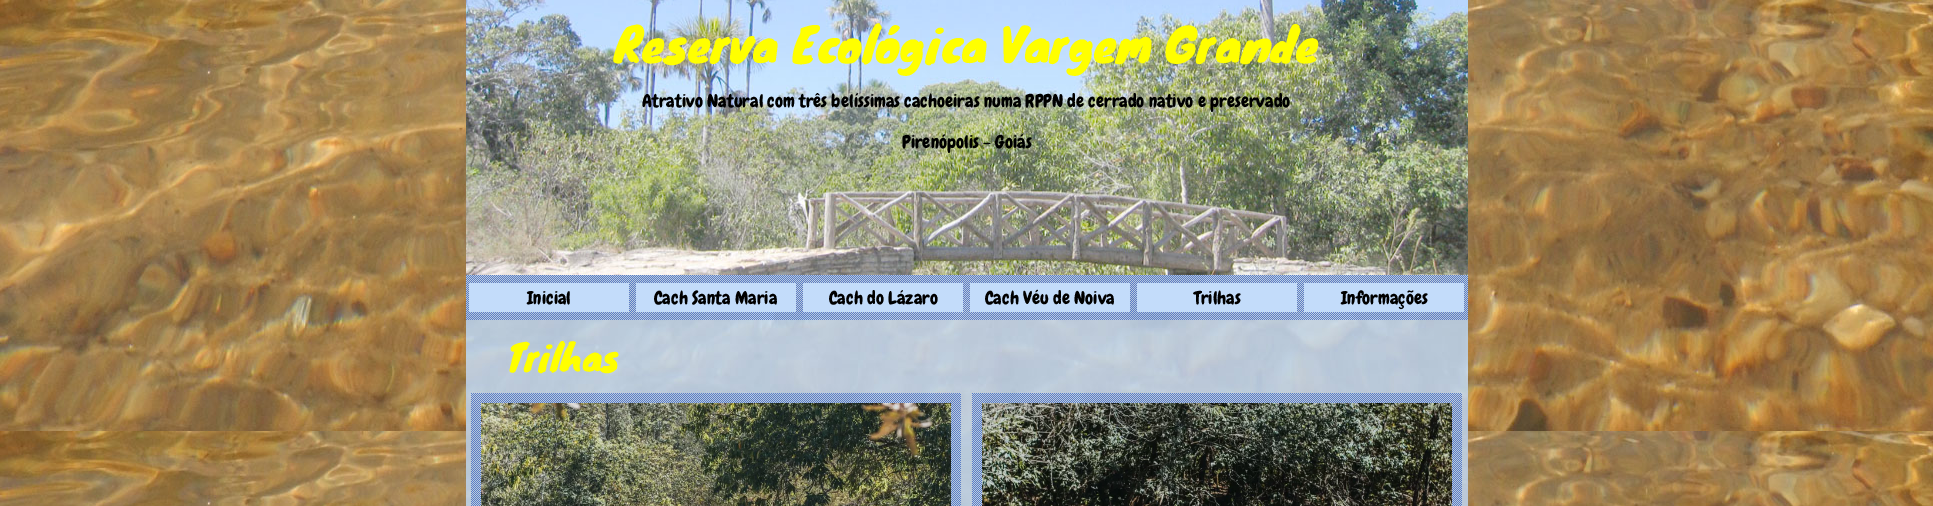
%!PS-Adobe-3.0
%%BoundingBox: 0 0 1933 506
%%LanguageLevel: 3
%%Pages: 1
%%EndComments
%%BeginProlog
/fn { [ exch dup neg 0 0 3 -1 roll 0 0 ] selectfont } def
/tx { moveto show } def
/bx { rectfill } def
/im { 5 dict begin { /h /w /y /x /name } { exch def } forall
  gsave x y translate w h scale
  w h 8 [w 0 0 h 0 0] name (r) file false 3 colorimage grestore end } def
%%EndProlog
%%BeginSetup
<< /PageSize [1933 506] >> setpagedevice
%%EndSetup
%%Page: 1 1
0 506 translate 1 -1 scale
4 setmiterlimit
1 setgray
0 0 1933 506 bx
(image0.raw) 0 0 1933 506 im
(image1.raw) 466 275 1002 231 im
(image2.raw) 466 0 1002 275 im
/Knewave-Regular 46.75 fn
1 1 0 setrgbcolor
(Reserva Ecológica Vargem Grande) 614 61 tx
/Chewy-Regular 18 fn
0 setgray
(Atrativo Natural com três belíssimas cachoeiras numa RPPN de cerrado nativo e preservado) 642 107 tx
(Pirenópolis - Goiás) 902 148 tx
(image3.raw) 466 275 1002 45 im
0.765 0.863 0.98 setrgbcolor
469 283 160 29 bx
0 setgray
(Inicial) 527 304 tx
0.765 0.863 0.98 setrgbcolor
636 283 160 29 bx
0 setgray
(Cach Santa Maria) 654 304 tx
0.765 0.863 0.98 setrgbcolor
803 283 160 29 bx
0 setgray
(Cach do Lázaro) 829 304 tx
0.765 0.863 0.98 setrgbcolor
970 283 160 29 bx
0 setgray
(Cach Véu de Noiva) 985 304 tx
0.765 0.863 0.98 setrgbcolor
1137 283 160 29 bx
0 setgray
(Trilhas) 1194 304 tx
0.765 0.863 0.98 setrgbcolor
1304 283 160 29 bx
0 setgray
(Informações) 1341 304 tx
/Knewave-Regular 36 fn
1 1 0 setrgbcolor
(Trilhas) 506 370 tx
(image4.raw) 471 393 490 113 im
(image5.raw) 481 403 470 103 im
(image6.raw) 972 393 490 113 im
(image7.raw) 982 403 470 103 im
showpage
%%EOF
